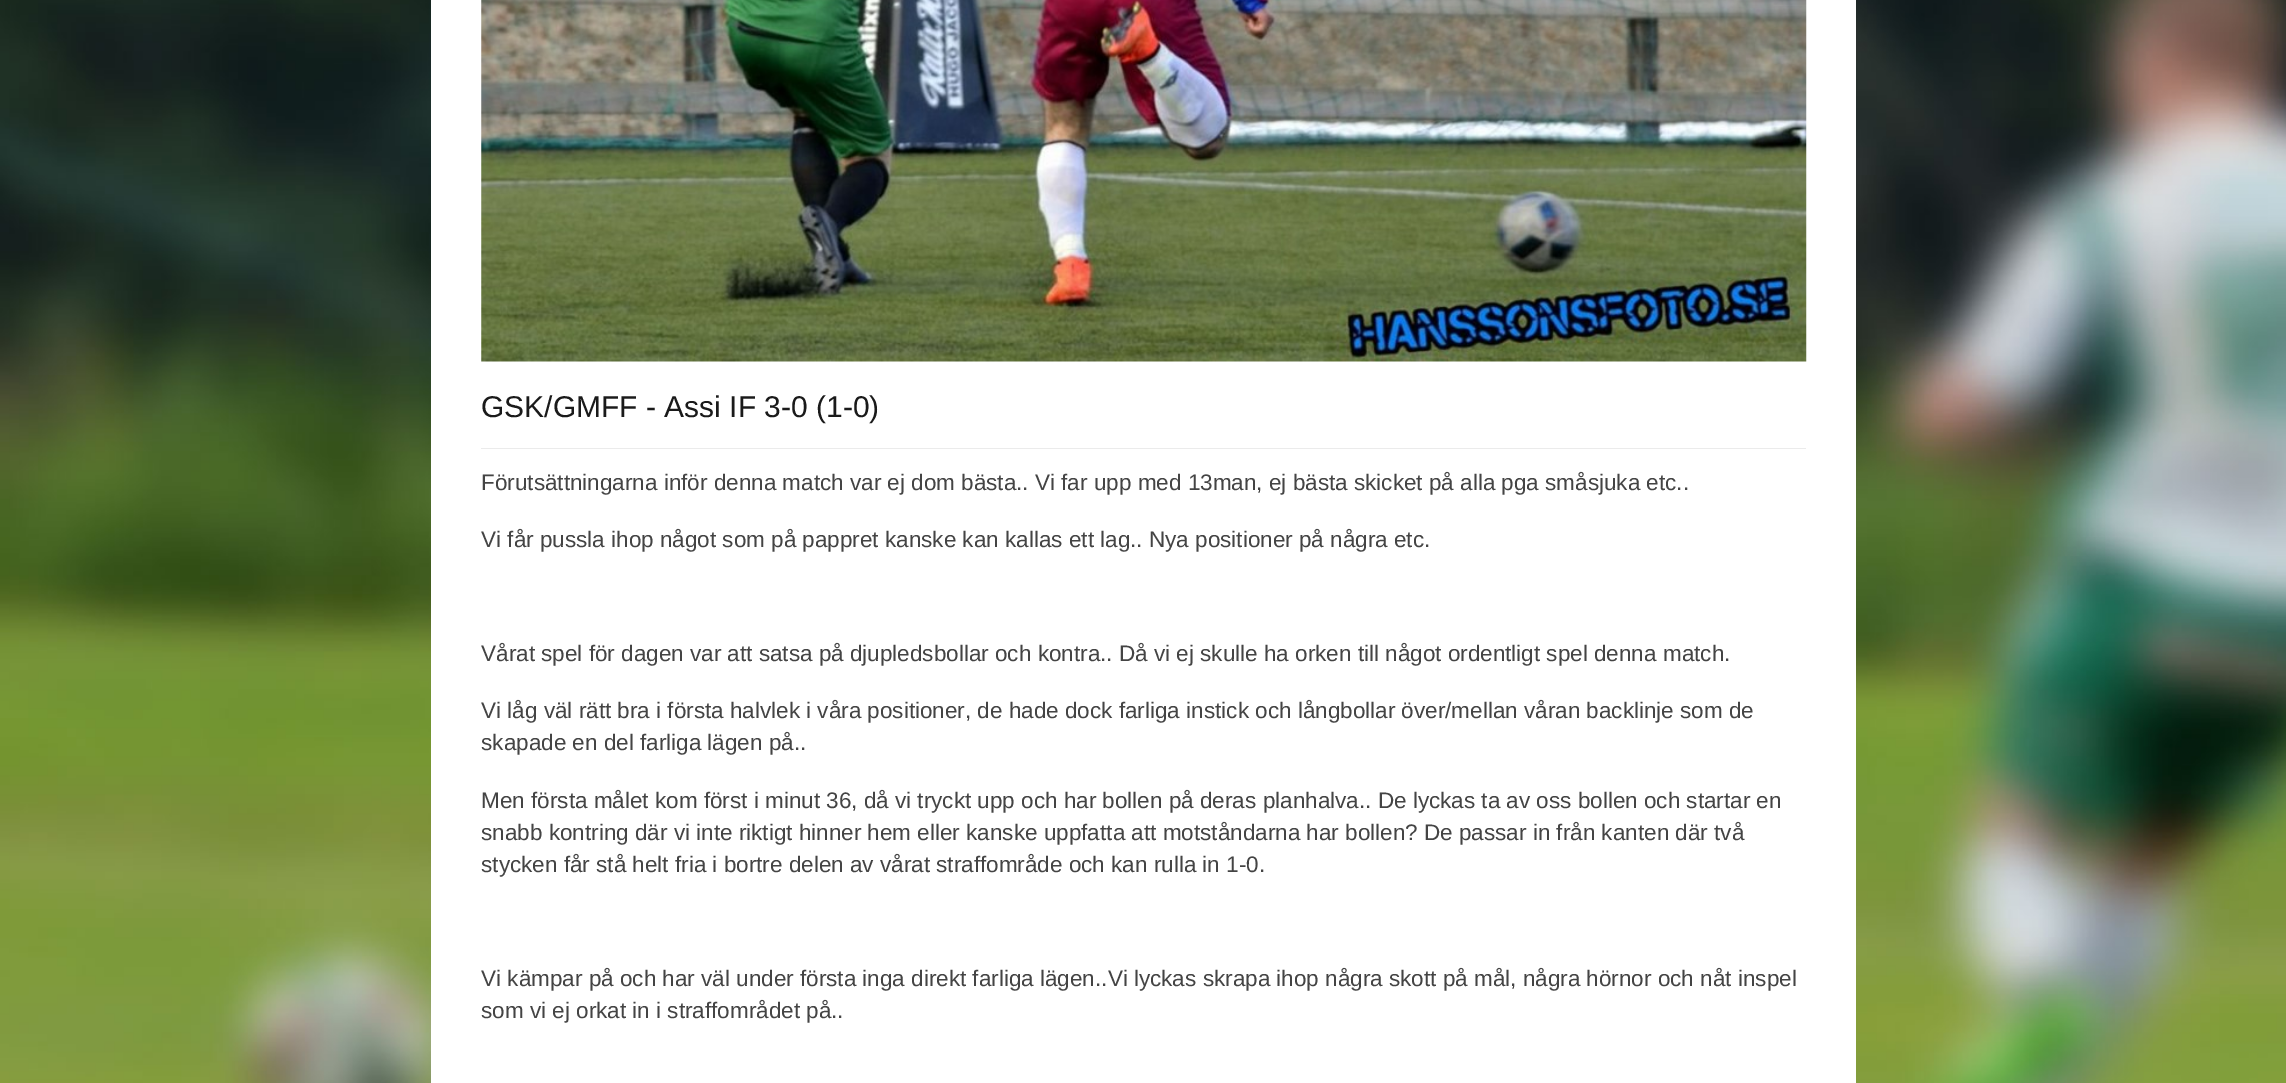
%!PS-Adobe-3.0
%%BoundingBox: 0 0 2286 1083
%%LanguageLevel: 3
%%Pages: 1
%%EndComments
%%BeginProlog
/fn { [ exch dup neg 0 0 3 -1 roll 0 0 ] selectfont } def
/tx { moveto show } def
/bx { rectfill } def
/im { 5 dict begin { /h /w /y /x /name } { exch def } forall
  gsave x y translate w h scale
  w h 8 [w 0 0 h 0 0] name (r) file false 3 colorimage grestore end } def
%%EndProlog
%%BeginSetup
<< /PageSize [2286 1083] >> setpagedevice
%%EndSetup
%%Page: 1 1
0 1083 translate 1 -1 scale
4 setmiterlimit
1 setgray
0 0 2286 1083 bx
(image0.raw) 0 0 2286 1083 im
431 0 1425 1083 bx
(image1.raw) 481 0 1326 362 im
0.922 setgray
481 448 1325 1 bx
/LiberationSans-Regular 30 fn
0.102 setgray
(GSK/GMFF - Assi IF 3-0 \(1-0\)) 481 417 tx
/LiberationSans-Regular 22.5 fn
0.267 setgray
(Förutsättningarna inför denna match var ej dom bästa.. Vi far upp med 13man, ej bästa skicket på alla pga småsjuka etc..) 481 490 tx
(Vi får pussla ihop något som på pappret kanske kan kallas ett lag.. Nya positioner på några etc.) 481 547 tx
(Vårat spel för dagen var att satsa på djupledsbollar och kontra.. Då vi ej skulle ha orken till något ordentligt spel denna match.) 481 661 tx
(Vi låg väl rätt bra i första halvlek i våra positioner, de hade dock farliga instick och långbollar över/mellan våran backlinje som de) 481 718 tx
(skapade en del farliga lägen på..) 481 750 tx
(Men första målet kom först i minut 36, då vi tryckt upp och har bollen på deras planhalva.. De lyckas ta av oss bollen och startar en) 481 808 tx
(snabb kontring där vi inte riktigt hinner hem eller kanske uppfatta att motståndarna har bollen? De passar in från kanten där två) 481 840 tx
(stycken får stå helt fria i bortre delen av vårat straffområde och kan rulla in 1-0.) 481 872 tx
(Vi kämpar på och har väl under första inga direkt farliga lägen..Vi lyckas skrapa ihop några skott på mål, några hörnor och nåt inspel) 481 986 tx
(som vi ej orkat in i straffområdet på..) 481 1018 tx
showpage
%%EOF
